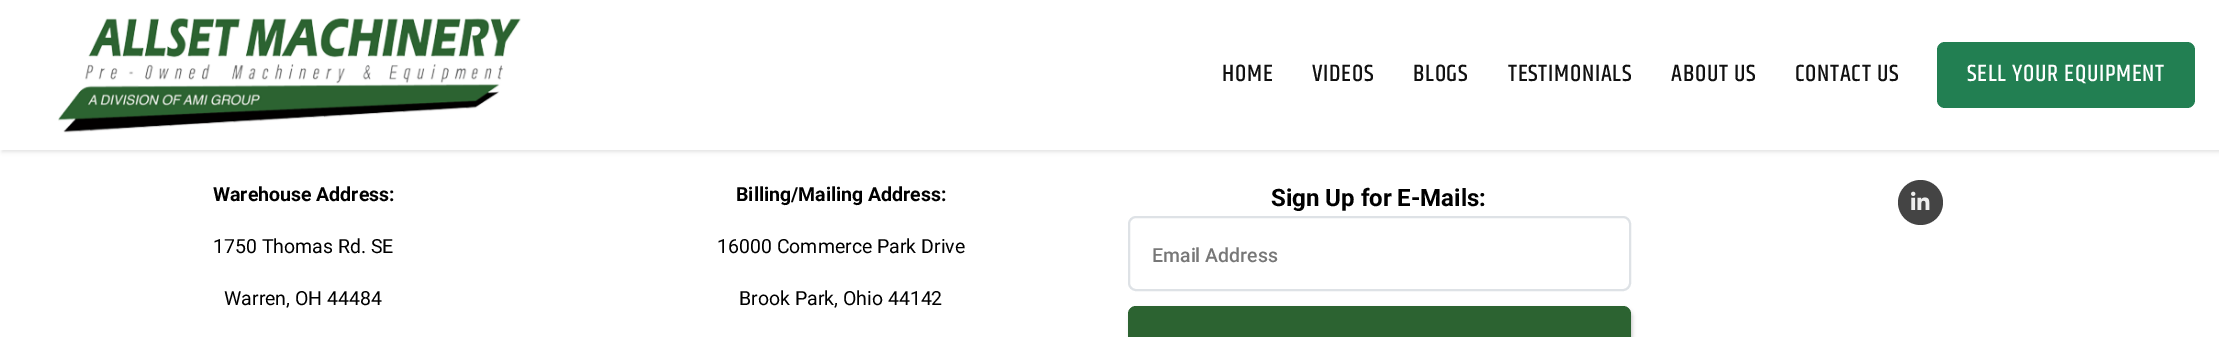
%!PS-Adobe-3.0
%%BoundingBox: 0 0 2219 337
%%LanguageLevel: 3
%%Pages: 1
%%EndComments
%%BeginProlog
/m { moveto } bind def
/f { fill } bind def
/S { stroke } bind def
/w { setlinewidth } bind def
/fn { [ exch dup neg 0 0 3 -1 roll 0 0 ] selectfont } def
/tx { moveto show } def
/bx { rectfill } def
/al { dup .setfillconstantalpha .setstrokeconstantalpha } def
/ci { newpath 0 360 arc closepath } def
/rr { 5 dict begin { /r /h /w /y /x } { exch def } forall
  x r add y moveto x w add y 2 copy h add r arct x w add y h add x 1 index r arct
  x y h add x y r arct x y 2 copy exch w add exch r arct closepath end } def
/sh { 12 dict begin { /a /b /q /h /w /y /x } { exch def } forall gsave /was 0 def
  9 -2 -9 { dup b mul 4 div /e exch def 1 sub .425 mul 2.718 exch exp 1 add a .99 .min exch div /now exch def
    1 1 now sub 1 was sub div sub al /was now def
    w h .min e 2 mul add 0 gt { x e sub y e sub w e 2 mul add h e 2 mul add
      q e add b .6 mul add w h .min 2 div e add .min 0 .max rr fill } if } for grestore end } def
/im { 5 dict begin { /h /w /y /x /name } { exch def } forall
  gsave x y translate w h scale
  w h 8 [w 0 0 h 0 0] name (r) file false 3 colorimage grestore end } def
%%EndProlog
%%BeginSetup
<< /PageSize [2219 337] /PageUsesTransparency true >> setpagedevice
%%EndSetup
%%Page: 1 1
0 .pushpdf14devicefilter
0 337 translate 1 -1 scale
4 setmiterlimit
1 setgray
0 0 2219 337 bx
0 setgray
2 2 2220 150 0 2 0.11 sh
1 setgray
0 0 2219 150 bx
(image0.raw) 58 18 463 115 im
/Khand-Medium 24 fn
0.067 setgray
1222 81 m 0.75 0 (HOME) ashow
1312 81 m 0.75 0 (VIDEOS) ashow
1413 81 m 0.75 0 (BLOGS) ashow
1508 81 m 0.75 0 (TESTIMONIALS) ashow
1671 81 m 0.75 0 (ABOUT US) ashow
1795 81 m 0.75 0 (CONTACT US) ashow
0.133 0.498 0.322 setrgbcolor
1937 42 258 66 8 rr f
1 setgray
1967 81 m 0.75 0 (SELL YOUR EQUIPMENT) ashow
/Roboto-Bold 19.5 fn
0 setgray
(Warehouse Address:) 213 201 tx
/Roboto-Regular 19.5 fn
(1750 Thomas Rd. SE) 213 253 tx
(Warren, OH 44484) 224 305 tx
/Roboto-Bold 19.5 fn
(Billing/Mailing Address:) 736 201 tx
/Roboto-Regular 19.5 fn
(16000 Commerce Park Drive) 717 253 tx
(Brook Park, Ohio 44142) 739 305 tx
/Roboto-Bold 24 fn
(Sign Up for E-Mails:) 1271 206 tx
0.871 0.886 0.902 setrgbcolor
2 w
1129 217 501 73 7 rr S
/Roboto-Medium 19.5 fn
0.467 setgray
(Email Address) 1152 262 tx
0 setgray
1130 309 502 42 8 2 0.24 sh
0.173 0.388 0.192 setrgbcolor
1128 306 503 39 8 rr f
0.267 setgray
1920.5 202.5 22.5 ci f
(image1.raw) 1911 191 19 19 im
.poppdf14devicefilter showpage
%%EOF
